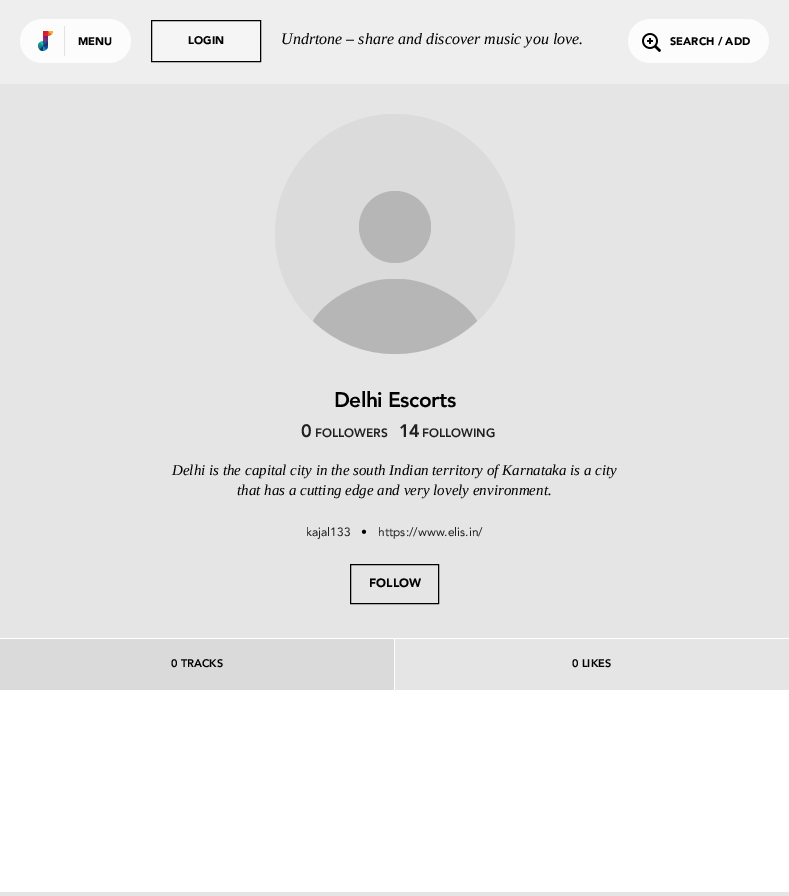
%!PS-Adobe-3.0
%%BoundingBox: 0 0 789 896
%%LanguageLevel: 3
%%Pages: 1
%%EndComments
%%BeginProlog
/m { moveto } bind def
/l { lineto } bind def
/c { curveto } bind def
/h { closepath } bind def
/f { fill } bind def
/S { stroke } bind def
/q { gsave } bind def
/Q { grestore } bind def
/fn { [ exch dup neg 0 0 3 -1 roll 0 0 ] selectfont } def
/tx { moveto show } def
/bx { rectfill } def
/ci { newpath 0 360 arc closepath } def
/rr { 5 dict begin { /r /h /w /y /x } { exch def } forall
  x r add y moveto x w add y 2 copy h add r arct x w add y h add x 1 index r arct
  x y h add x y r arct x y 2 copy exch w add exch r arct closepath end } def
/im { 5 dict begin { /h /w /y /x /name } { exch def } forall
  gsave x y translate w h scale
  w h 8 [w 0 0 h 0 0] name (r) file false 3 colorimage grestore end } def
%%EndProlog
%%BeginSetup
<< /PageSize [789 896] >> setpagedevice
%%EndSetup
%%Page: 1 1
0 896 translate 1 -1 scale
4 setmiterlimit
1 setgray
0 0 789 896 bx
0.933 setgray
0 0 789 84 bx
0.988 setgray
20 19 111 44 22 rr f
(image0.raw) 38 31 15 20 im
0.89 setgray
64 26 1 30 bx
/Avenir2-Black 11 fn
0 setgray
(MENU) 78 45 tx
0.961 setgray
151.5 20.5 m 260.5 20.5 l 260.5 61.5 l 151.5 61.5 l h q f Q
0 setgray
S
(LOGIN) 188 44 tx
/LiberationSerif-Italic 16 fn
(Undrtone – share and discover music you love.) 281 44 tx
0.988 setgray
628 19 141 44 22 rr f
(image1.raw) 642 33 19 19 im
/Avenir2-Black 11 fn
0 setgray
(SEARCH / ADD) 670 45 tx
0.898 setgray
0 84 789 554 bx
0.863 0.859 0.859 setrgbcolor
395 234 120 ci f
0.714 setgray
399 279 m 426 279 464 298 477 321 c 431 365 359 365 313 321 c 326 298 364 279 391 279 c h 395 263 m 375 263 359 247 359 227 c 359 207 375 191 395 191 c 415 191 431 207 431 227 c 431 247 415 263 395 263 c h eofill
/Avenir-Black 21 fn
0 setgray
334 407 m -0.5 0 (Delhi Escorts) ashow
/Avenir-Black 18 fn
0.125 setgray
301 437 m -1 0 (0) ashow
/Avenir-Black 12 fn
(FOLLOWERS) 315 437 tx
/Avenir-Black 18 fn
399 437 m -1 0 (14) ashow
/Avenir-Black 12 fn
(FOLLOWING) 422 437 tx
/LiberationSerif-Italic 15 fn
0 setgray
(Delhi is the capital city in the south Indian territory of Karnataka is a city) 172 475 tx
(that has a cutting edge and very lovely environment.) 237 495 tx
/Avenir-Regular 12 fn
0.125 setgray
(kajal133) 306 536 tx
/Avenir-Black 12 fn
0 setgray
(•) 361 536 tx
/Avenir-Regular 12 fn
0.125 setgray
(https://www.elis.in/) 378 536 tx
0 setgray
350.5 564.5 88 39 rectstroke
/Avenir2-Black 12 fn
(FOLLOW) 369 587 tx
0.898 setgray
395 639 394 51 bx
0.855 setgray
0 639 394 51 bx
/Avenir-Black 11 fn
0 setgray
(0 TRACKS) 171 667 tx
(0 LIKES) 572 667 tx
0.898 setgray
0 892 789 4 bx
showpage
%%EOF
